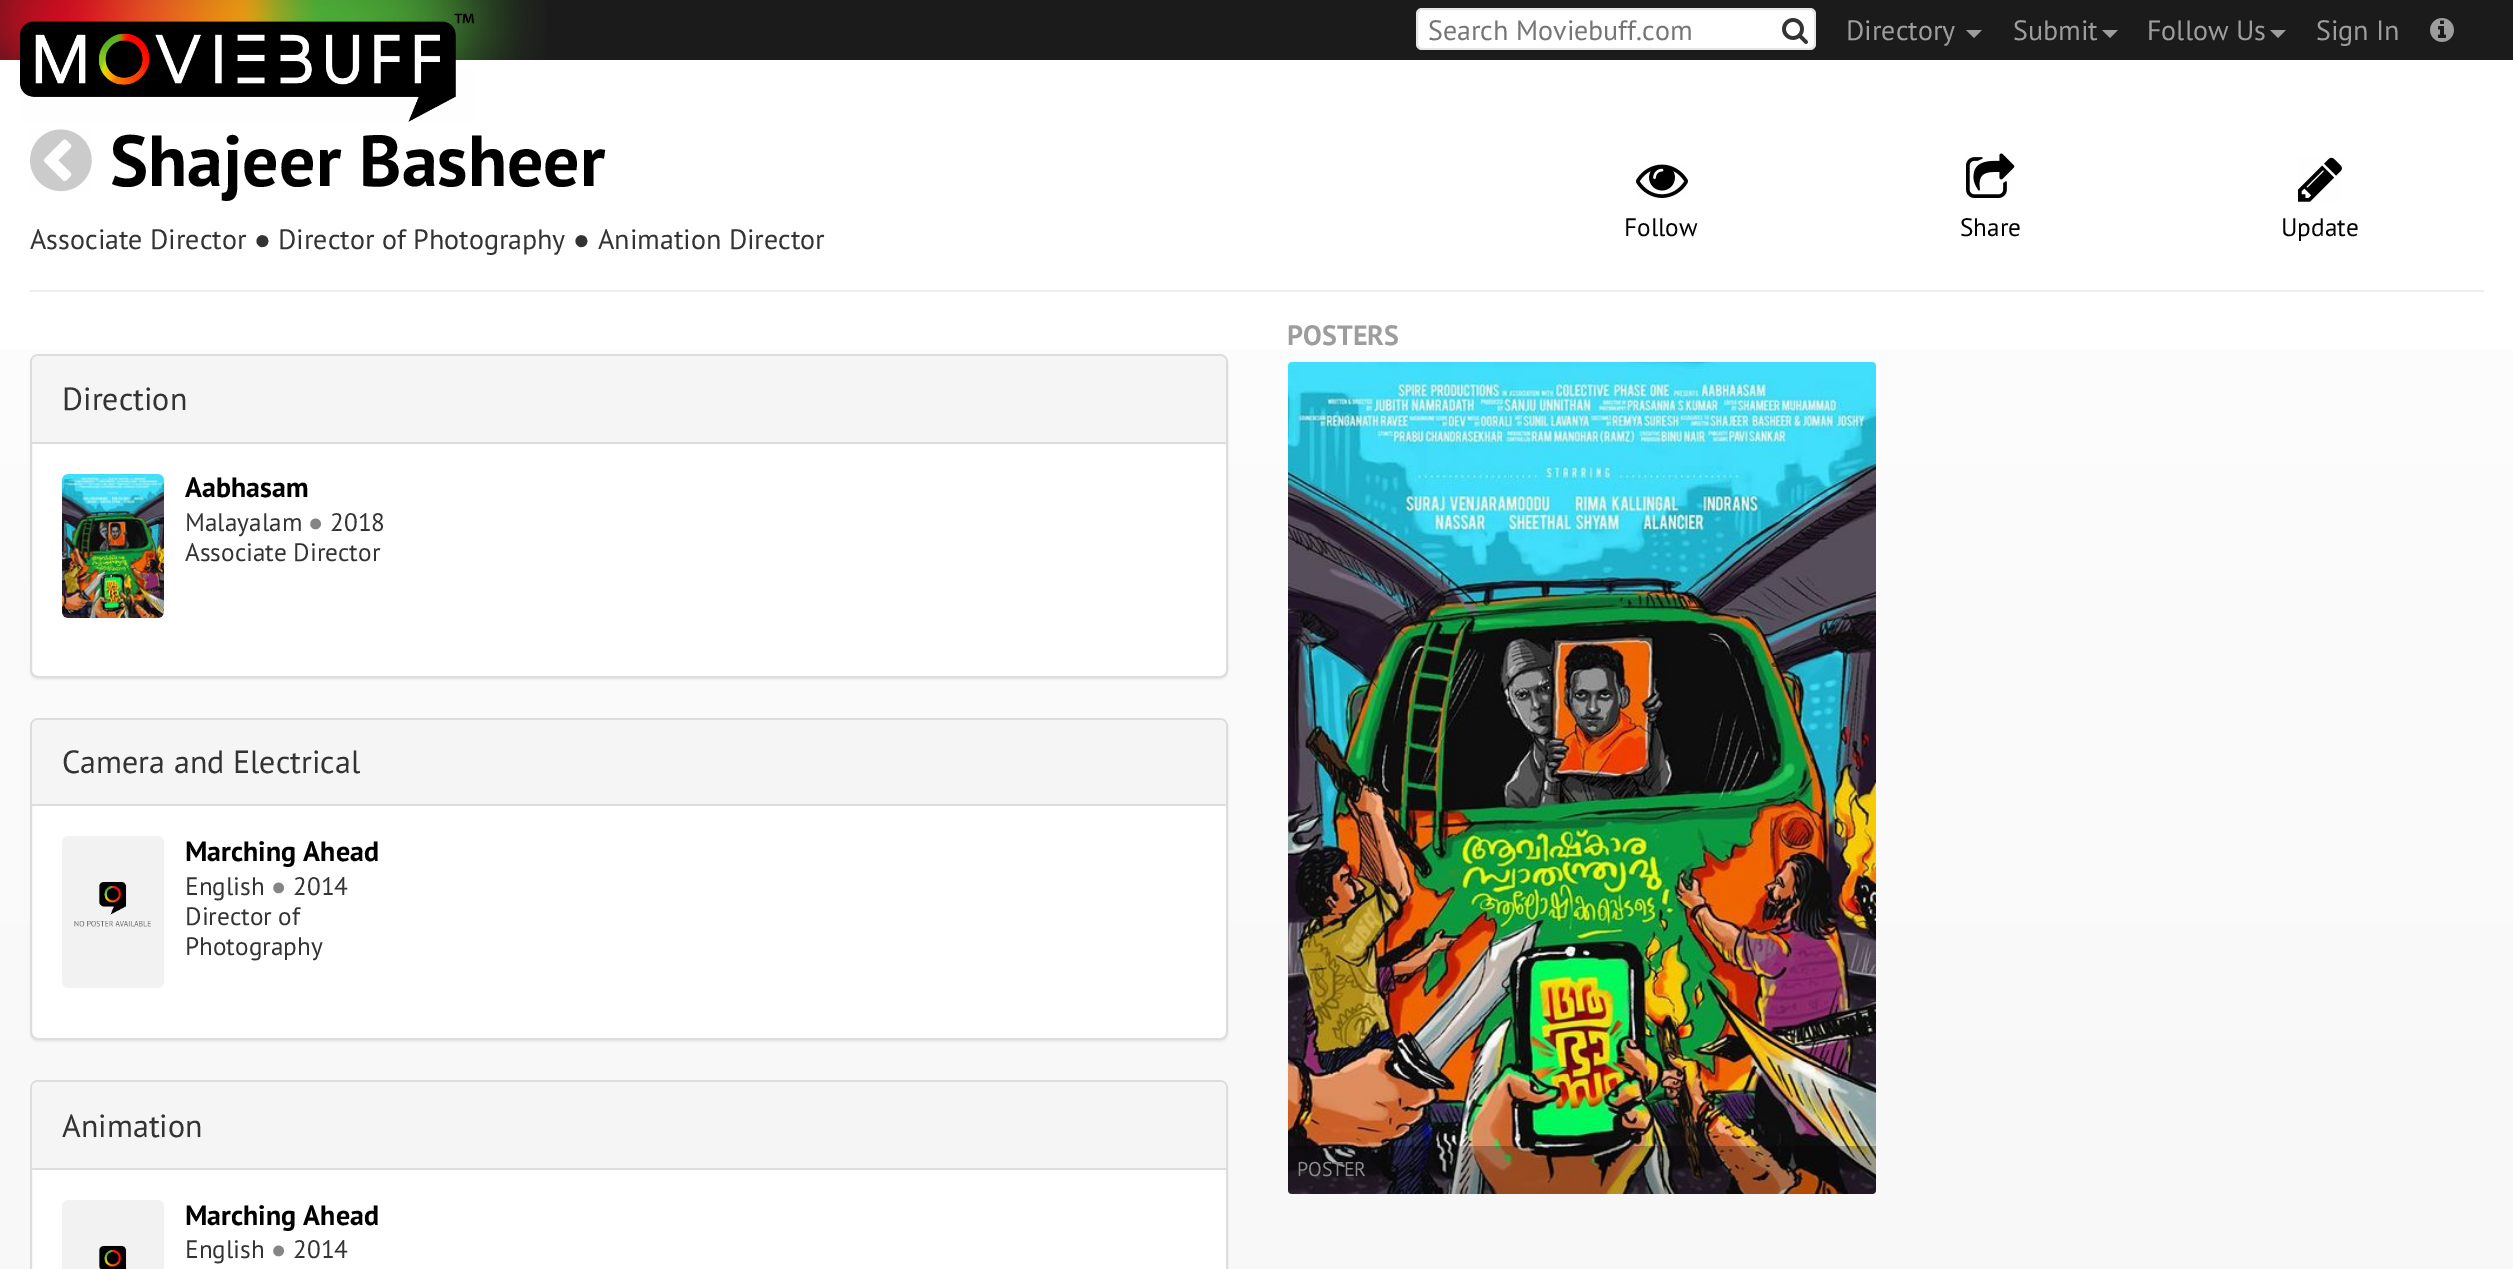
%!PS-Adobe-3.0
%%BoundingBox: 0 0 2513 1269
%%LanguageLevel: 3
%%Pages: 1
%%EndComments
%%BeginProlog
/m { moveto } bind def
/l { lineto } bind def
/c { curveto } bind def
/h { closepath } bind def
/f { fill } bind def
/S { stroke } bind def
/q { gsave } bind def
/Q { grestore } bind def
/w { setlinewidth } bind def
/fn { [ exch dup neg 0 0 3 -1 roll 0 0 ] selectfont } def
/tx { moveto show } def
/bx { rectfill } def
/al { dup .setfillconstantalpha .setstrokeconstantalpha } def
/rr { 5 dict begin { /r /h /w /y /x } { exch def } forall
  x r add y moveto x w add y 2 copy h add r arct x w add y h add x 1 index r arct
  x y h add x y r arct x y 2 copy exch w add exch r arct closepath end } def
/sh { 12 dict begin { /a /b /q /h /w /y /x } { exch def } forall gsave /was 0 def
  9 -2 -9 { dup b mul 4 div /e exch def 1 sub .425 mul 2.718 exch exp 1 add a .99 .min exch div /now exch def
    1 1 now sub 1 was sub div sub al /was now def
    w h .min e 2 mul add 0 gt { x e sub y e sub w e 2 mul add h e 2 mul add
      q e add b .6 mul add w h .min 2 div e add .min 0 .max rr fill } if } for grestore end } def
/im { 5 dict begin { /h /w /y /x /name } { exch def } forall
  gsave x y translate w h scale
  w h 8 [w 0 0 h 0 0] name (r) file false 3 colorimage grestore end } def
%%EndProlog
%%BeginSetup
<< /PageSize [2513 1269] /PageUsesTransparency true >> setpagedevice
%%EndSetup
%%Page: 1 1
0 .pushpdf14devicefilter
0 1269 translate 1 -1 scale
4 setmiterlimit
1 setgray
0 0 2513 1269 bx
q 0 349 m 2513 349 l 2513 1269 l 0 1269 l h clip newpath
<< /ShadingType 2 /ColorSpace /DeviceRGB /Coords [1257 0 1257 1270] /Extend [true true] /Function << /FunctionType 3 /Domain [0 1] /Functions [<< /FunctionType 2 /Domain [0 1] /C0 [1 1 1] /C1 [0.988 0.988 0.988] /N 1 >> << /FunctionType 2 /Domain [0 1] /C0 [0.988 0.988 0.988] /C1 [0.98 0.98 0.98] /N 1 >> << /FunctionType 2 /Domain [0 1] /C0 [0.98 0.98 0.98] /C1 [0.973 0.973 0.973] /N 1 >>] /Bounds [0.33 0.67] /Encode [0 1 0 1 0 1] >> >> shfill Q
0.106 setgray
0 0 2513 60 bx
(image0.raw) 0 0 546 60 im
(image1.raw) 20 13 454 109 im
1 setgray
1416 8 400 42 6 rr f
0.1 al
0 setgray
2 w
1417 9 398 40 5 rr S
/PTSans-Regular 28 fn
1 al
0.459 setgray
(Search Moviebuff.com) 1428 40 tx
(image2.raw) 1782 18 26 26 im
0.616 setgray
(Directory) 1846 40 tx
1966 30 m 1982 30 l 1974 38 l h f
(Submit) 2013 40 tx
2102 30 m 2118 30 l 2110 38 l h f
(Follow Us) 2147 40 tx
2270 30 m 2286 30 l 2278 38 l h f
(Sign In) 2316 40 tx
(image3.raw) 2430 18 24 24 im
(image4.raw) 30 129 62 63 im
/PTSans-Bold 72 fn
0 setgray
(Shajeer Basheer) 110 186 tx
/PTSans-Regular 28 fn
0.2 setgray
(Associate Director) 30 249 tx
/LiberationSerif-Regular 28 fn
(●) 254 249 tx
/PTSans-Regular 28 fn
(Director of Photography) 278 249 tx
/LiberationSerif-Regular 28 fn
(●) 573 249 tx
/PTSans-Regular 28 fn
(Animation Director) 598 249 tx
(image5.raw) 1636 164 52 34 im
/PTSans-Regular 25.25 fn
0 setgray
(Follow) 1624 236 tx
(image6.raw) 1966 153 49 45 im
(Share) 1960 236 tx
(image7.raw) 2298 157 44 45 im
(Update) 2281 236 tx
0.933 setgray
30 290 2454 2 bx
0 setgray
30 356 1198 324 8 1 0.05 sh
1 setgray
31 355 1196 322 7 rr q f Q
0.867 setgray
S
0.961 setgray
38 356 m 1220 356 l 1223.5 356 1226 358.5 1226 362 c 1226 444 l 32 444 l 32 362 l 32 358.5 34.5 356 38 356 c h f
0.867 setgray
32 442 1194 2 bx
/PTSans-Regular 32 fn
0.2 setgray
(Direction) 62 410 tx
(image8.raw) 62 474 102 144 im
/PTSans-Bold 28 fn
0 setgray
(Aabhasam) 185 497 tx
/PTSans-Regular 25.25 fn
0.2 setgray
(Malayalam) 185 531 tx
/LiberationSerif-Regular 25.25 fn
0.522 setgray
(●) 308 531 tx
/PTSans-Regular 25.25 fn
0.2 setgray
(2018) 330 531 tx
(Associate Director) 185 561 tx
0 setgray
30 720 1198 322 8 1 0.05 sh
1 setgray
31 719 1196 320 7 rr q f Q
0.867 setgray
S
0.961 setgray
38 720 m 1220 720 l 1223.5 720 1226 722.5 1226 726 c 1226 806 l 32 806 l 32 726 l 32 722.5 34.5 720 38 720 c h f
0.867 setgray
32 804 1194 2 bx
/PTSans-Regular 32 fn
0.2 setgray
(Camera and Electrical) 62 773 tx
(image9.raw) 62 836 102 152 im
/PTSans-Bold 28 fn
0 setgray
(Marching Ahead) 185 861 tx
/PTSans-Regular 25.25 fn
0.2 setgray
(English) 185 895 tx
/LiberationSerif-Regular 25.25 fn
0.522 setgray
(●) 271 895 tx
/PTSans-Regular 25.25 fn
0.2 setgray
(2014) 293 895 tx
(Director of) 185 925 tx
(Photography) 185 955 tx
1 setgray
31 1081 1196 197 7 rr q f Q
0.867 setgray
S
0.961 setgray
38 1082 m 1220 1082 l 1223.5 1082 1226 1084.5 1226 1088 c 1226 1170 l 32 1170 l 32 1088 l 32 1084.5 34.5 1082 38 1082 c h f
0.867 setgray
32 1168 1194 2 bx
/PTSans-Regular 32 fn
0.2 setgray
(Animation) 62 1137 tx
(image10.raw) 62 1200 102 69 im
/PTSans-Bold 28 fn
0 setgray
(Marching Ahead) 185 1225 tx
/PTSans-Regular 25.25 fn
0.2 setgray
(English) 185 1258 tx
/LiberationSerif-Regular 25.25 fn
0.522 setgray
(●) 271 1258 tx
/PTSans-Regular 25.25 fn
0.2 setgray
(2014) 293 1258 tx
/PTSans-Bold 28 fn
0.616 setgray
(POSTERS) 1287 345 tx
(image11.raw) 1288 362 588 832 im
0.25 al
0 setgray
1288 1146 m 1876 1146 l 1876 1190 l 1876 1192 1874 1194 1872 1194 c 1292 1194 l 1290 1194 1288 1192 1288 1190 c h f
/PTSans-Regular 20 fn
1 al
0.545 0.541 0.549 setrgbcolor
(POSTER) 1297 1176 tx
.poppdf14devicefilter showpage
%%EOF
